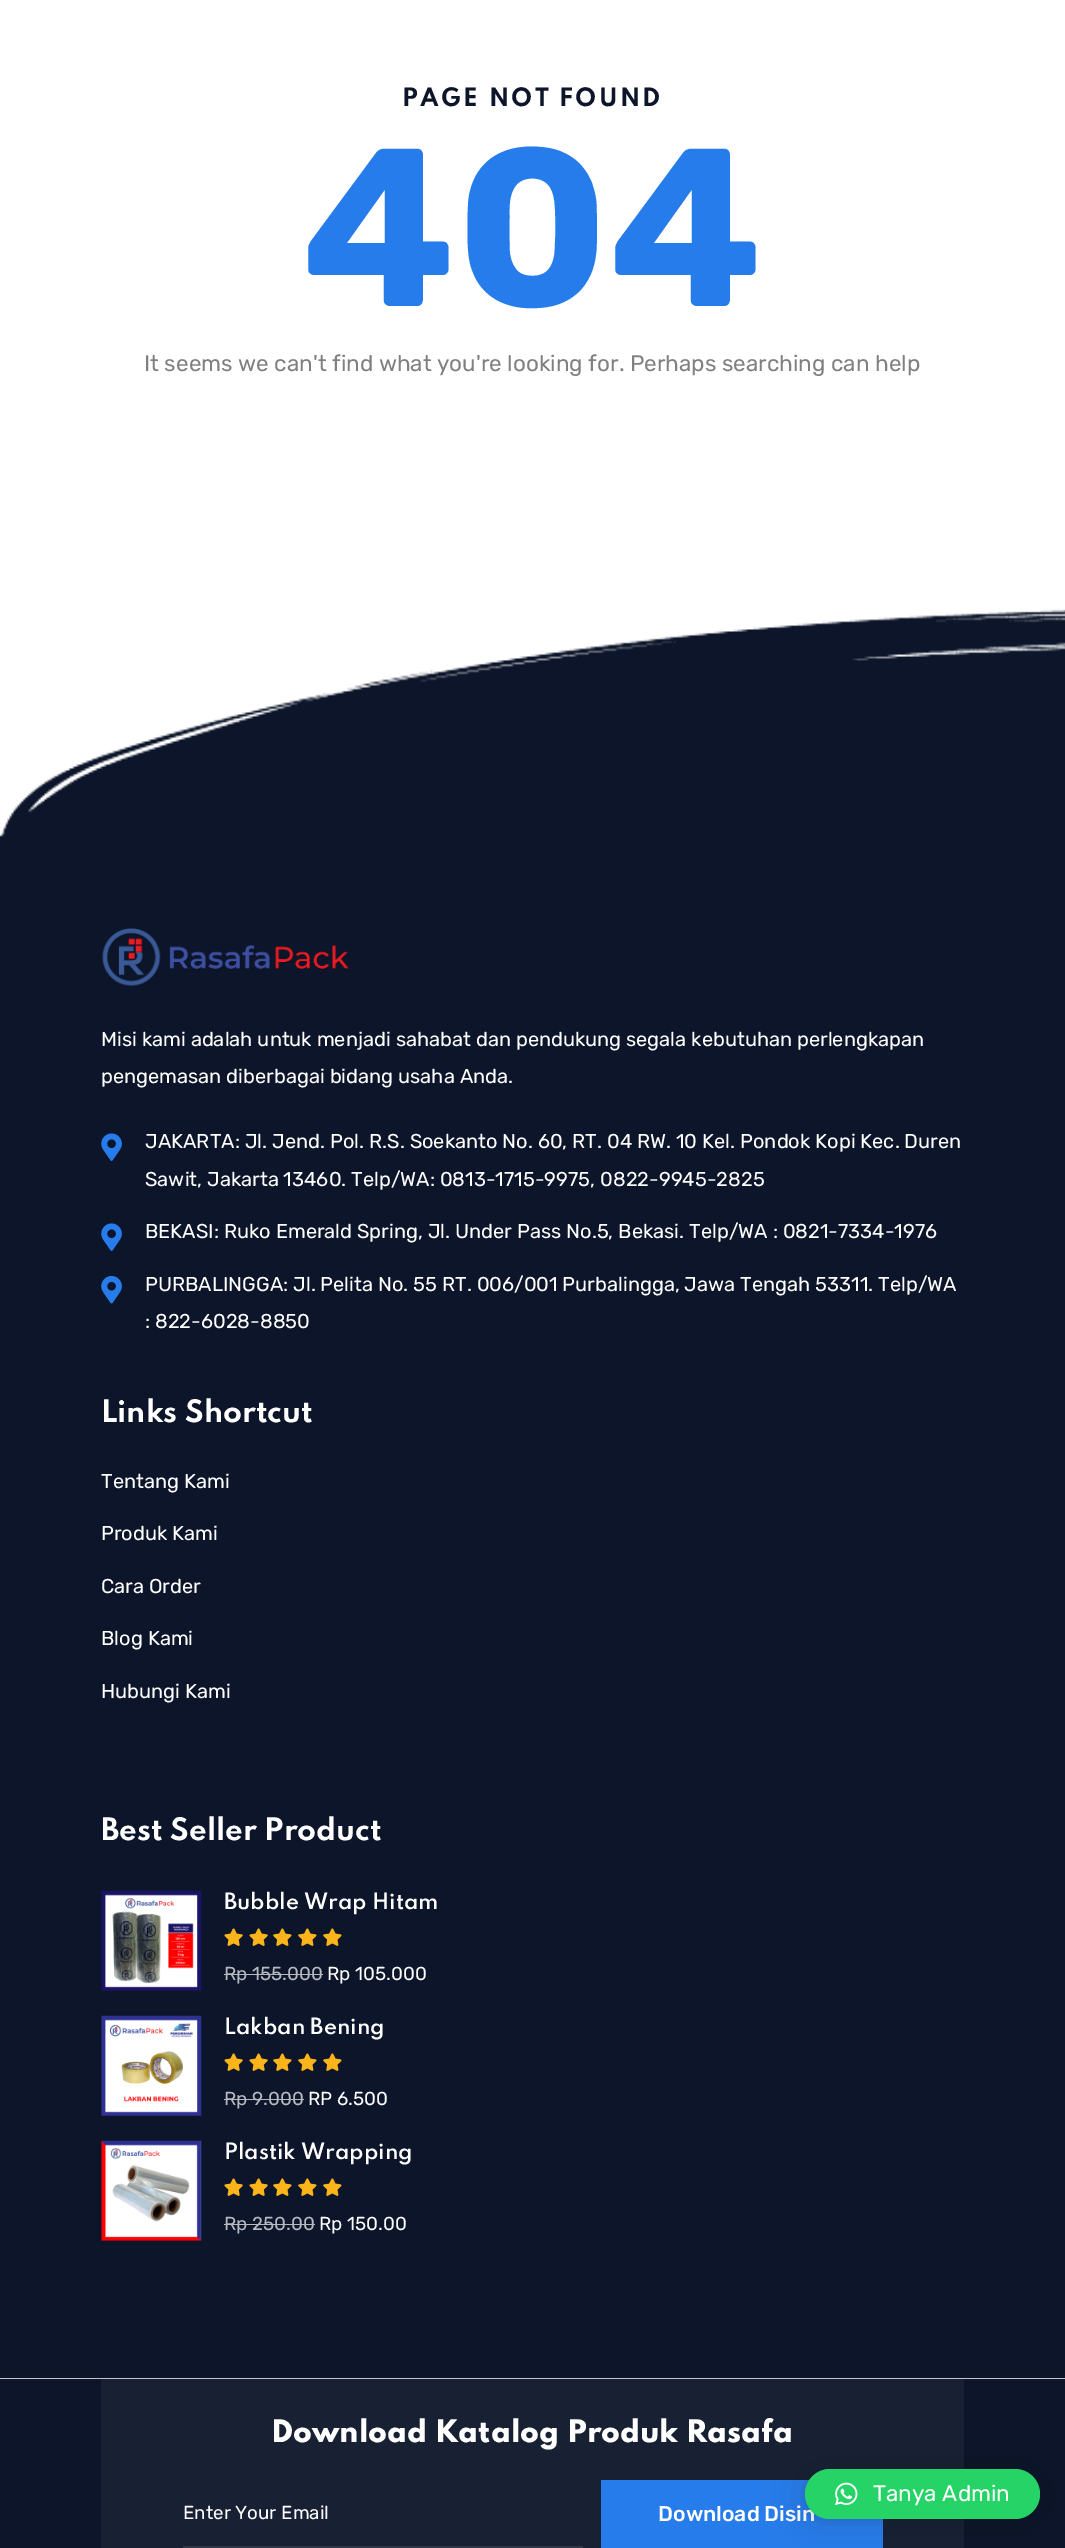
%!PS-Adobe-3.0
%%BoundingBox: 0 0 1065 2548
%%LanguageLevel: 3
%%Pages: 1
%%EndComments
%%BeginProlog
/m { moveto } bind def
/f { fill } bind def
/fn { [ exch dup neg 0 0 3 -1 roll 0 0 ] selectfont } def
/tx { moveto show } def
/bx { rectfill } def
/al { dup .setfillconstantalpha .setstrokeconstantalpha } def
/rr { 5 dict begin { /r /h /w /y /x } { exch def } forall
  x r add y moveto x w add y 2 copy h add r arct x w add y h add x 1 index r arct
  x y h add x y r arct x y 2 copy exch w add exch r arct closepath end } def
/sh { 12 dict begin { /a /b /q /h /w /y /x } { exch def } forall gsave /was 0 def
  9 -2 -9 { dup b mul 4 div /e exch def 1 sub .425 mul 2.718 exch exp 1 add a .99 .min exch div /now exch def
    1 1 now sub 1 was sub div sub al /was now def
    w h .min e 2 mul add 0 gt { x e sub y e sub w e 2 mul add h e 2 mul add
      q e add b .6 mul add w h .min 2 div e add .min 0 .max rr fill } if } for grestore end } def
/im { 5 dict begin { /h /w /y /x /name } { exch def } forall
  gsave x y translate w h scale
  w h 8 [w 0 0 h 0 0] name (r) file false 3 colorimage grestore end } def
%%EndProlog
%%BeginSetup
<< /PageSize [1065 2548] /PageUsesTransparency true >> setpagedevice
%%EndSetup
%%Page: 1 1
0 .pushpdf14devicefilter
0 2548 translate 1 -1 scale
4 setmiterlimit
1 setgray
0 0 1065 2548 bx
/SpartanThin-Bold 22.5 fn
0.047 0.082 0.161 setrgbcolor
402 106 m 2.25 0 (PAGE NOT FOUND) ashow
/Rubik-Bold 225 fn
0.153 0.486 0.922 setrgbcolor
(404) 302 306 tx
/Rubik-Regular 22.5 fn
0.502 setgray
(It seems we can't find what you're looking for. Perhaps searching can help) 144 371 tx
(image0.raw) 0 609 1065 1770 im
(image1.raw) 102 928 247 59 im
/Rubik-Regular 20 fn
1 setgray
(Misi kami adalah untuk menjadi sahabat dan pendukung segala kebutuhan perlengkapan) 101 1046 tx
(pengemasan diberbagai bidang usaha Anda.) 101 1083 tx
(image2.raw) 101 1133 21 28 im
(JAKARTA: Jl. Jend. Pol. R.S. Soekanto No. 60, RT. 04 RW. 10 Kel. Pondok Kopi Kec. Duren) 145 1148 tx
(Sawit, Jakarta 13460. Telp/WA: 0813-1715-9975, 0822-9945-2825) 145 1186 tx
(image2.raw) 101 1223 21 28 im
(BEKASI: Ruko Emerald Spring, Jl. Under Pass No.5, Bekasi. Telp/WA : 0821-7334-1976) 145 1238 tx
(image3.raw) 101 1275 21 29 im
(PURBALINGGA: Jl. Pelita No. 55 RT. 006/001 Purbalingga, Jawa Tengah 53311. Telp/WA) 145 1291 tx
(: 822-6028-8850) 145 1328 tx
/SpartanThin-Bold 27.5 fn
(Links Shortcut) 101 1422 tx
/Rubik-Regular 20 fn
(Tentang Kami) 101 1488 tx
(Produk Kami) 101 1540 tx
(Cara Order) 101 1593 tx
(Blog Kami) 101 1645 tx
(Hubungi Kami) 101 1698 tx
/SpartanThin-Bold 27.5 fn
(Best Seller Product) 101 1840 tx
(image4.raw) 101 1890 101 101 im
/SpartanThin-SemiBold 20 fn
(Bubble Wrap Hitam) 224 1909 tx
(image5.raw) 224 1928 19 18 im
(image5.raw) 249 1928 19 18 im
(image6.raw) 273 1928 19 18 im
(image6.raw) 298 1928 19 18 im
(image6.raw) 323 1928 19 18 im
/Rubik-Regular 18.75 fn
0.714 0.725 0.749 setrgbcolor
(Rp 155.000) 224 1980 tx
224 1974 99 1 bx
1 setgray
(Rp 105.000) 327 1980 tx
(image7.raw) 101 2015 101 101 im
/SpartanThin-SemiBold 20 fn
(Lakban Bening) 224 2034 tx
(image5.raw) 224 2053 19 18 im
(image5.raw) 249 2053 19 18 im
(image6.raw) 273 2053 19 18 im
(image6.raw) 298 2053 19 18 im
(image6.raw) 323 2053 19 18 im
/Rubik-Regular 18.75 fn
0.714 0.725 0.749 setrgbcolor
(Rp 9.000) 224 2105 tx
224 2099 80 1 bx
1 setgray
(RP 6.500) 308 2105 tx
(image8.raw) 101 2140 101 101 im
/SpartanThin-SemiBold 20 fn
(Plastik Wrapping) 224 2159 tx
(image5.raw) 224 2178 19 18 im
(image5.raw) 249 2178 19 18 im
(image6.raw) 273 2178 19 18 im
(image6.raw) 298 2178 19 18 im
(image6.raw) 323 2178 19 18 im
/Rubik-Regular 18.75 fn
0.714 0.725 0.749 setrgbcolor
(Rp 250.00) 224 2230 tx
224 2224 91 1 bx
1 setgray
(Rp 150.00) 319 2230 tx
0.047 0.082 0.161 setrgbcolor
0 2379 1065 169 bx
0.094 0.129 0.204 setrgbcolor
101 2379 863 169 bx
/SpartanThin-ExtraBold 27.5 fn
1 setgray
(Download Katalog Produk Rasafa) 271 2442 tx
0.184 0.216 0.282 setrgbcolor
183 2546 400 2 bx
/Rubik-Regular 18.75 fn
1 setgray
(Enter Your Email) 183 2519 tx
0.153 0.486 0.922 setrgbcolor
601 2480 282 68 bx
/Rubik-Medium 21.25 fn
1 setgray
(Download Disin) 658 2521 tx
0 setgray
805 2471 235 50 25 20 0.16 sh
805 2470 235 50 25 4 0.06 sh
0.145 0.827 0.4 setrgbcolor
805 2469 235 50 25 rr f
(image9.raw) 835 2482 23 24 im
/Rubik-Regular 22.5 fn
1 setgray
(Tanya Admin) 873 2501 tx
.poppdf14devicefilter showpage
%%EOF
